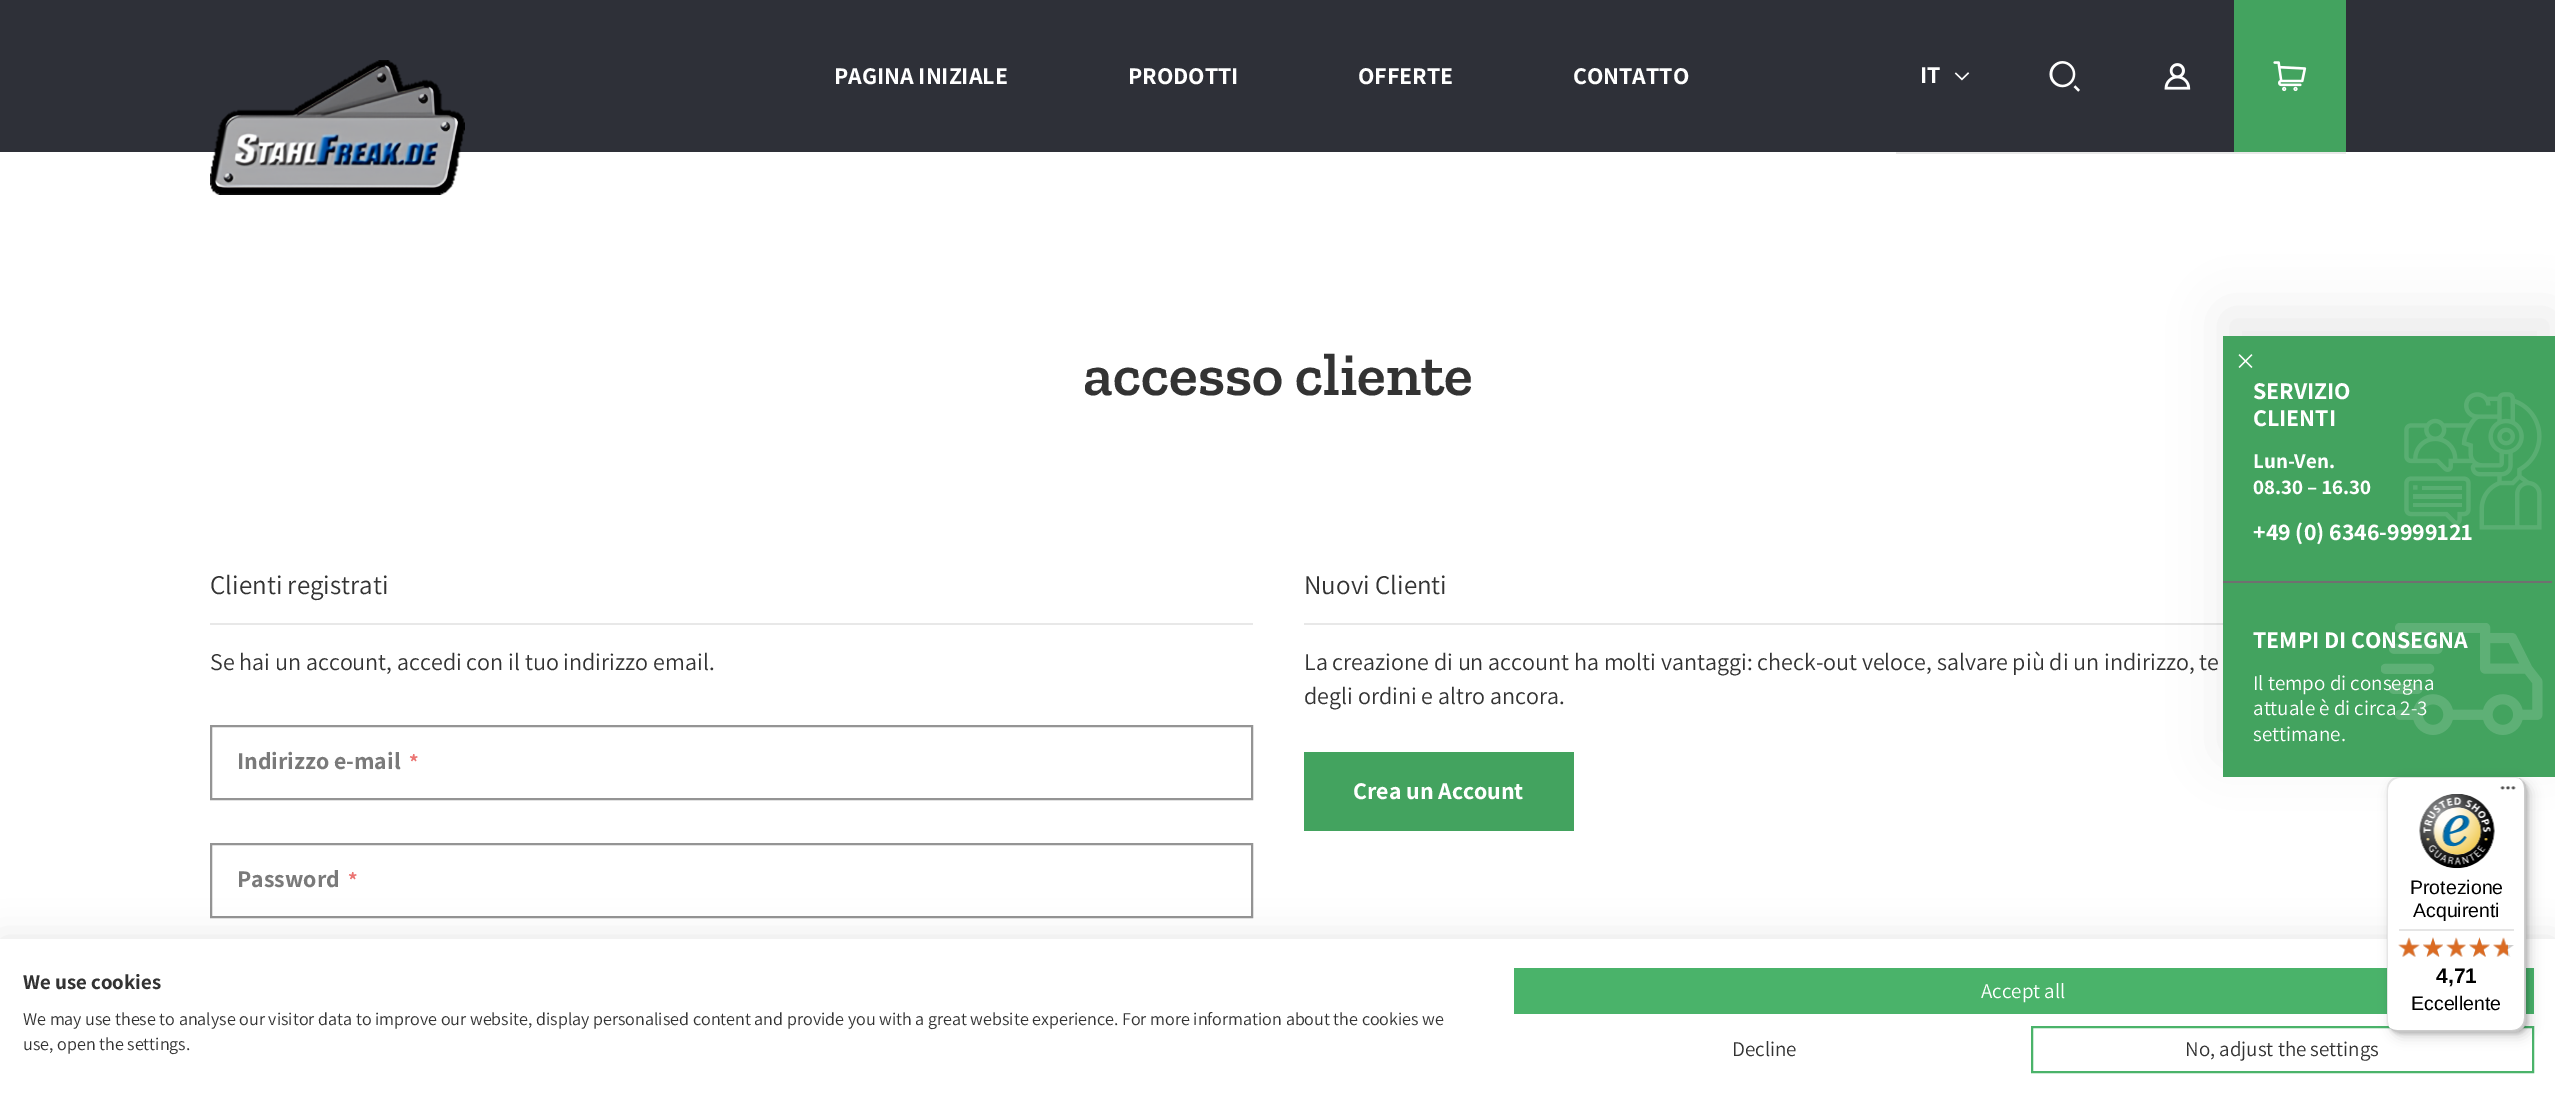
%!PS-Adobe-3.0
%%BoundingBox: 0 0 2555 1113
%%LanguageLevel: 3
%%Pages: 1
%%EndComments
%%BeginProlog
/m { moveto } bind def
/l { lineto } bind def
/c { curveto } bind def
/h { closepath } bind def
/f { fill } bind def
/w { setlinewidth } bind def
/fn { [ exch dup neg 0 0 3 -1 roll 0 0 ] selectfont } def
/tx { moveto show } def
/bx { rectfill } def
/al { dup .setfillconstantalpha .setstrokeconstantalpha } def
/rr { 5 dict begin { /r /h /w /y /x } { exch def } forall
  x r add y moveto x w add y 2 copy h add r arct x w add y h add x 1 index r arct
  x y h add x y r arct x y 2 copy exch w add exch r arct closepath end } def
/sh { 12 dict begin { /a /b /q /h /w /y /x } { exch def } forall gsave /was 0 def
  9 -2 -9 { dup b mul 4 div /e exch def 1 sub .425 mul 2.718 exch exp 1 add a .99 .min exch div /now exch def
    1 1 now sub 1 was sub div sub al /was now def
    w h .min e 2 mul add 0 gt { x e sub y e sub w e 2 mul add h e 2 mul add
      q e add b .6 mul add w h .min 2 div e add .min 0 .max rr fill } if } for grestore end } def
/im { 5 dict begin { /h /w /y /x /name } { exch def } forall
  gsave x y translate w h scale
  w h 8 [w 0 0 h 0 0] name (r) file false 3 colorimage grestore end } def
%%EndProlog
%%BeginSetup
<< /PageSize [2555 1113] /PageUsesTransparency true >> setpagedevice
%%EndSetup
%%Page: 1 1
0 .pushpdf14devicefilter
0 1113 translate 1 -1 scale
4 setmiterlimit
1 setgray
0 0 2555 1113 bx
0.18 0.188 0.22 setrgbcolor
0 0 2555 152 bx
(image0.raw) 210 60 255 135 im
/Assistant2-ExtraLight 24 fn
1 setgray
(PAGINA INIZIALE) 834 84 tx
(PRODOTTI) 1128 84 tx
(OFFERTE) 1358 84 tx
(CONTATTO) 1573 84 tx
0.91 setgray
1896 152 450 2 bx
1 setgray
(IT) 1920 83 tx
(image1.raw) 1954 72 16 9 im
(image2.raw) 2049 61 31 31 im
(image3.raw) 2164 63 27 27 im
0.263 0.639 0.373 setrgbcolor
2234 0 112 152 bx
(image4.raw) 2273 61 34 31 im
/ZillaSlab-SemiBold 60 fn
0.2 setgray
(accesso cliente) 1083 395 tx
0.91 setgray
210 623 1043 2 bx
/Assistant-ExtraLight 27 fn
0.2 setgray
(Clienti registrati) 210 594 tx
/Assistant-ExtraLight 24 fn
(Se hai un account, accedi con il tuo indirizzo email.) 210 670 tx
0.58 setgray
2 w
211 726 1041 73 rectstroke
/Assistant2-ExtraLight 24 fn
0.478 setgray
(Indirizzo e-mail) 237 769 tx
/Assistant2-ExtraLight 21 fn
0.922 0.459 0.451 setrgbcolor
(*) 409 769 tx
0.58 setgray
211 844 1041 73 rectstroke
/Assistant2-ExtraLight 24 fn
0.478 setgray
(Password) 237 887 tx
/Assistant2-ExtraLight 21 fn
0.922 0.459 0.451 setrgbcolor
(*) 348 887 tx
0.91 setgray
1304 623 919 2 bx
/Assistant-ExtraLight 27 fn
0.2 setgray
(Nuovi Clienti) 1304 594 tx
/Assistant-ExtraLight 24 fn
(La creazione di un account ha molti vantaggi: check-out veloce, salvare più di un indirizzo, te) 1304 670 tx
(degli ordini e altro ancora.) 1304 704 tx
0.263 0.639 0.373 setrgbcolor
1304 752 270 79 bx
/Assistant2-ExtraLight 24 fn
1 setgray
(Crea un Account) 1353 799 tx
0 setgray
2223 312 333 441 0 25.5 0.07 sh
0.263 0.639 0.373 setrgbcolor
2223 336 332 441 bx
(image5.raw) 2238 354 15 14 im
(image6.raw) 2404 392 138 138 im
0.439 setgray
2223 581 329 2 bx
1 setgray
(SERVIZIO) 2253 399 tx
(CLIENTI) 2253 426 tx
/Assistant2-ExtraLight 21 fn
(Lun-Ven.) 2253 468 tx
(08.30 – 16.30) 2253 494 tx
/Assistant2-ExtraLight 24 fn
(+49 \(0\) 6346-9999121) 2253 540 tx
(image7.raw) 2381 623 162 112 im
(TEMPI DI CONSEGNA) 2253 648 tx
/Assistant-ExtraLight 21 fn
(Il tempo di consegna) 2253 690 tx
(attuale è di circa 2-3) 2253 715 tx
(settimane.) 2253 741 tx
0 setgray
0 939 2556 174 0 18 0.1 sh
1 setgray
0 939 2555 174 bx
/Assistant2-ExtraLight 21 fn
0.2 setgray
(We use cookies) 23 989 tx
/Assistant-ExtraLight 18 fn
(We may use these to analyse our visitor data to improve our website, display personalised content and provide you with a great website experience. For more information about the cookies we) 23 1025 tx
(use, open the settings.) 23 1050 tx
0.29 0.702 0.416 setrgbcolor
1514 968 1020 46 bx
/Assistant-ExtraLight 21 fn
1 setgray
(Accept all) 1981 998 tx
0.2 setgray
(Decline) 1732 1056 tx
0.29 0.702 0.416 setrgbcolor
2032 1027 501 45 rectstroke
0.2 setgray
(No, adjust the settings) 2185 1056 tx
0 setgray
2391 782 140 255 12 6 0.15 sh
2388 779 140 255 12 1.5 0.15 sh
1 setgray
2387 777 139 255 12 rr f
0.1 al
0 setgray
2400 778 m 2516 778 l 2518 778 2520 779 2521 780 c 2519 778 2517 777 2514 777 c 2399 777 l 2392 777 2387 782 2387 789 c 2387 1020 l 2387 1022 2388 1025 2389 1027 c 2388 1022 l 2388 790 l 2388 784 2393 778 2400 778 c h f
0.2 al
2390 1028 m 2392 1030 2395 1032 2399 1032 c 2514 1032 l 2521 1032 2526 1027 2526 1020 c 2526 789 l 2526 784 2523 780 2519 778 c 2522 780 2524 784 2524 788 c 2524 1018 l 2524 1025 2519 1030 2512 1030 c 2397 1030 l 2394 1030 2392 1029 2390 1028 c h f
0.196 setgray
2391 1029 m 2393 1031 2396 1032 2399 1032 c 2514 1032 l 2521 1032 2526 1027 2526 1020 c 2526 789 l 2526 786 2525 783 2523 781 c 2524 783 2525 785 2525 788 c 2525 1019 l 2525 1026 2520 1031 2513 1031 c 2398 1031 l 2395 1031 2393 1030 2391 1029 c h f
0.3 al
1 setgray
2391 1029 m 2393 1031 2396 1032 2399 1032 c 2514 1032 l 2521 1032 2526 1027 2526 1020 c 2526 789 l 2526 785 2524 782 2522 780 c 2524 782 2525 785 2525 788 c 2525 1019 l 2525 1026 2520 1031 2513 1031 c 2398 1031 l 2395 1031 2393 1030 2391 1029 c h f
1 al
(image8.raw) 2500 786 16 4 im
(image9.raw) 2419 794 76 75 im
/LiberationSans-Regular 19.5 fn
0 setgray
(Protezione) 2410 894 tx
(Acquirenti) 2413 917 tx
0.898 setgray
2399 929 115 2 bx
(image10.raw) 2398 938 22 19 im
(image11.raw) 2423 937 20 20 im
(image12.raw) 2446 938 20 19 im
(image13.raw) 2469 937 21 20 im
(image14.raw) 2493 938 21 19 im
(image15.raw) 2398 937 22 20 im
(image16.raw) 2423 937 20 20 im
(image17.raw) 2446 937 20 20 im
(image18.raw) 2469 937 21 20 im
(image19.raw) 2493 937 15 20 im
/LiberationSans-Bold 21 fn
0 setgray
(4,71) 2436 983 tx
/LiberationSans-Regular 19.5 fn
(Eccellente) 2411 1010 tx
.poppdf14devicefilter showpage
%%EOF
